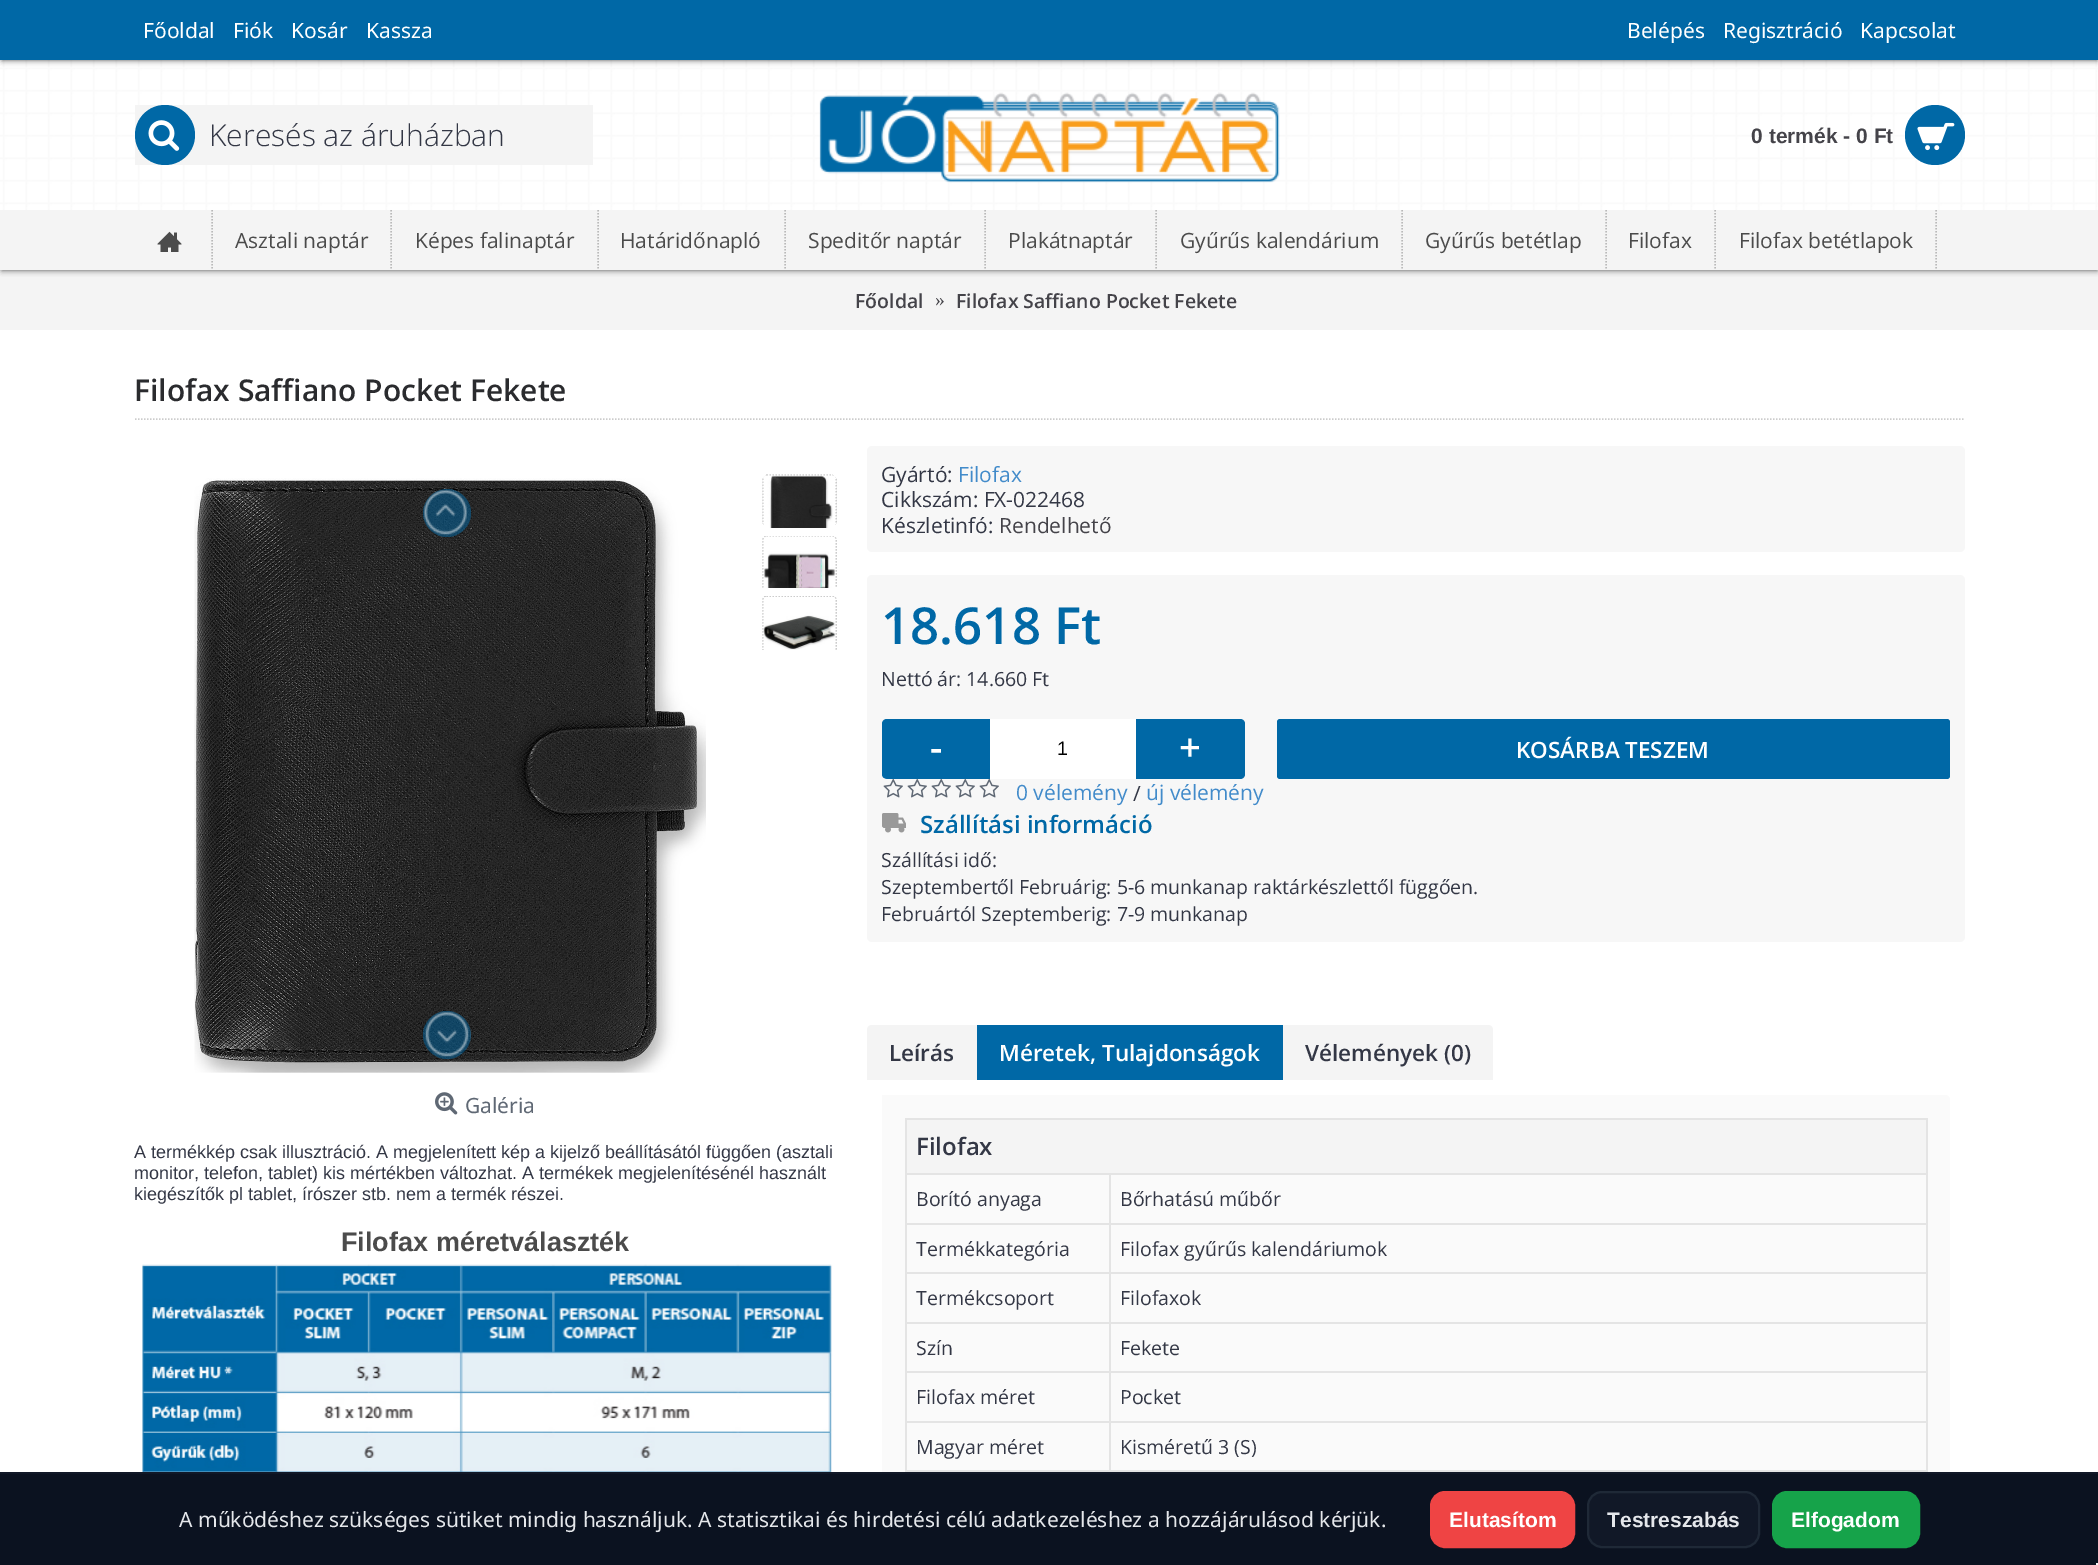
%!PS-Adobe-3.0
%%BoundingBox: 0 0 2098 1565
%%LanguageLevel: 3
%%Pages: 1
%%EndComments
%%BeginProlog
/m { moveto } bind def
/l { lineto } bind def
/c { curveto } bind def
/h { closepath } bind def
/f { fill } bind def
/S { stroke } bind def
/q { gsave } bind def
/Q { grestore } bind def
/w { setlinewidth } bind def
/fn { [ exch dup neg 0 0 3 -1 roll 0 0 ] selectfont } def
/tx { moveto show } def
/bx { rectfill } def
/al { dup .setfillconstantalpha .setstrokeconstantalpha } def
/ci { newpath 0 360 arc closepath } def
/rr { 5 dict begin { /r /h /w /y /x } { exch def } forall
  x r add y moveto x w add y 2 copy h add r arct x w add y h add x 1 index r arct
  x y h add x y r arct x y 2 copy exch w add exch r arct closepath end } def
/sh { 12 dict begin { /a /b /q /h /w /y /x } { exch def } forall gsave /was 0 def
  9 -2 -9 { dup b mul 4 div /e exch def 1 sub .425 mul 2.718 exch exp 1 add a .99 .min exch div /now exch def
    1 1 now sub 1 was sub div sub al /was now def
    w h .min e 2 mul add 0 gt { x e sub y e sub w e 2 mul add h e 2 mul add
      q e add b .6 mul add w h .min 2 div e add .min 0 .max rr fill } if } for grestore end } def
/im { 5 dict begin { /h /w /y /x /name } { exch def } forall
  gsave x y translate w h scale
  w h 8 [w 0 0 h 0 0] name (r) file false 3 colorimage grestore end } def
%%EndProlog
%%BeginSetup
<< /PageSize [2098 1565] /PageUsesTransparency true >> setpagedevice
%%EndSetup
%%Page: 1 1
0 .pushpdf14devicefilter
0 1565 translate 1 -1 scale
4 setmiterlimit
1 setgray
0 0 2098 1565 bx
0.957 setgray
0 270 2098 60 bx
0 setgray
2 3 2095 267 0 3 0.7 sh
(image0.raw) 0 60 2098 150 im
2 3 2095 57 0 3 0.7 sh
0 0.408 0.651 setrgbcolor
0 0 2098 60 bx
/NotoSans-Regular 21 fn
1 setgray
(Főoldal) 143 38 tx
(Fiók) 233 38 tx
(Kosár) 291 38 tx
(Kassza) 366 38 tx
(Belépés) 1627 38 tx
(Regisztráció) 1723 38 tx
(Kapcsolat) 1860 38 tx
0.957 setgray
135 105 458 60 bx
0 0.408 0.651 setrgbcolor
165 135 30 ci f
(image1.raw) 148 120 32 31 im
/OpenSans-Light 30 fn
0.2 0.216 0.271 setrgbcolor
(Keresés az áruházban) 209 146 tx
(image2.raw) 819 92 461 91 im
/LiberationSans-Bold 21 fn
0.267 0.263 0.286 setrgbcolor
(0 termék - 0 Ft) 1751 143 tx
0 0.408 0.651 setrgbcolor
1935 135 30 ci f
(image3.raw) 1917 122 38 29 im
0.957 setgray
0 210 2098 60 bx
0.725 setgray
1.5 w
[1.5 1.5] 0 setdash
212 210 m 212 270 l S
(image4.raw) 157 231 25 21 im
391 210 m 391 270 l S
/OpenSans-Regular 21 fn
0.294 setgray
(Asztali naptár) 235 248 tx
0.725 setgray
598 210 m 598 270 l S
0.294 setgray
(Képes falinaptár) 415 248 tx
0.725 setgray
785 210 m 785 270 l S
0.294 setgray
(Határidőnapló) 620 248 tx
0.725 setgray
985 210 m 985 270 l S
0.294 setgray
(Speditőr naptár) 808 248 tx
0.725 setgray
1156 210 m 1156 270 l S
0.294 setgray
(Plakátnaptár) 1008 248 tx
0.725 setgray
1402 210 m 1402 270 l S
0.294 setgray
(Gyűrűs kalendárium) 1180 248 tx
0.725 setgray
1606 210 m 1606 270 l S
0.294 setgray
(Gyűrűs betétlap) 1425 248 tx
0.725 setgray
1715 210 m 1715 270 l S
0.294 setgray
(Filofax) 1628 248 tx
0.725 setgray
1936 210 m 1936 270 l S
0.294 setgray
(Filofax betétlapok) 1739 248 tx
/OpenSans-SemiBold 19.5 fn
0.267 0.263 0.286 setrgbcolor
(Főoldal) 855 308 tx
/LiberationSerif-Regular 19.5 fn
(») 935 306 tx
/OpenSans-SemiBold 19.5 fn
(Filofax Saffiano Pocket Fekete) 956 308 tx
0.8 setgray
135 419 m 1965 419 l S
/OpenSans-SemiBold 30 fn
0.165 0.169 0.18 setrgbcolor
(Filofax Saffiano Pocket Fekete) 134 401 tx
(image5.raw) 194 478 512 595 im
0.5 al
0 0.408 0.651 setrgbcolor
447 513 24 ci f
1 al
(image6.raw) 424 490 43 45 im
0.5 al
447 1035 24 ci f
1 al
(image7.raw) 425 1012 46 45 im
q
762 474 75 54 8 rr clip newpath
0.8 setgray
766.5 475 m 832.5 475 l 834.5 475 836 476.5 836 478.5 c 836 544.5 l 836 546.5 834.5 548 832.5 548 c 766.5 548 l 764.5 548 763 546.5 763 544.5 c 763 478.5 l 763 476.5 764.5 475 766.5 475 c h S
Q
(image8.raw) 763 475 73 53 im
q
762 536 75 52 rectclip
0.8 setgray
766.5 536 m 832.5 536 l 834.5 536 836 538 836 540 c 836 606 l 836 608 834.5 610 832.5 610 c 766.5 610 l 764.5 610 763 608 763 606 c 763 540 l 763 538 764.5 536 766.5 536 c h S
Q
(image9.raw) 763 536 73 52 im
q
762 596 75 54 rectclip
0.8 setgray
766.5 596 m 832.5 596 l 834.5 596 836 598 836 600 c 836 666 l 836 668 834.5 670 832.5 670 c 766.5 670 l 764.5 670 763 668 763 666 c 763 600 l 763 598 764.5 596 766.5 596 c h S
Q
(image10.raw) 763 597 73 53 im
(image11.raw) 435 1092 23 23 im
/NotoSans-Regular 21 fn
0.373 0.408 0.455 setrgbcolor
(Galéria) 465 1113 tx
/LiberationSans-Regular 18 fn
0.2 0.216 0.271 setrgbcolor
(A termékkép csak illusztráció. A megjelenített kép a kijelző beállításától függően \(asztali) 134 1158 tx
(monitor, telefon, tablet\) kis mértékben változhat. A termékek megjelenítésénél használt) 134 1179 tx
(kiegészítők pl tablet, írószer stb. nem a termék részei.) 134 1200 tx
/LiberationSans-Bold 27 fn
0.294 setgray
(Filofax méretválaszték) 341 1251 tx
(image12.raw) 142 1264 691 208 im
0.969 setgray
867 446 1098 106 5 rr f
/OpenSans-Regular 21 fn
0.2 0.216 0.271 setrgbcolor
(Gyártó:) 881 482 tx
0.259 0.545 0.792 setrgbcolor
(Filofax) 958 482 tx
0.2 0.216 0.271 setrgbcolor
(Cikkszám: FX-022468) 881 507 tx
(Készletinfó:) 881 533 tx
0.267 0.263 0.286 setrgbcolor
(Rendelhető) 999 533 tx
0.969 setgray
867 575 1098 367 5 rr f
/OpenSans-SemiBold 51 fn
0 0.408 0.651 setrgbcolor
(18.618 Ft) 881 644 tx
/OpenSans-Regular 19.5 fn
0.2 0.216 0.271 setrgbcolor
(Nettó ár: 14.660 Ft) 881 686 tx
0 0.408 0.651 setrgbcolor
887 719 m 990 719 l 990 779 l 887 779 l 884 779 882 777 882 774 c 882 724 l 882 721 884 719 887 719 c h f
/OpenSans-SemiBold 38 fn
1 setgray
(-) 930 761 tx
990 719 146 60 bx
/LiberationSans-Regular 19.5 fn
0 setgray
(1) 1057 755 tx
0 0.408 0.651 setrgbcolor
1136 719 m 1240 719 l 1243 719 1245 721 1245 724 c 1245 774 l 1245 777 1243 779 1240 779 c 1136 779 l h f
/OpenSans-SemiBold 38 fn
1 setgray
(+) 1179 761 tx
0 0.408 0.651 setrgbcolor
1277 719 673 60 3 rr f
/OpenSans-SemiBold 22.5 fn
1 setgray
(KOSÁRBA TESZEM) 1516 758 tx
(image13.raw) 883 778 20 20 im
(image14.raw) 907 778 20 20 im
(image14.raw) 931 778 20 20 im
(image14.raw) 955 778 20 20 im
(image15.raw) 979 778 20 20 im
/OpenSans-Regular 21 fn
0.259 0.545 0.792 setrgbcolor
(0 vélemény) 1016 800 tx
0.2 0.216 0.271 setrgbcolor
(/) 1133 801 tx
0.259 0.545 0.792 setrgbcolor
(új vélemény) 1146 800 tx
(image16.raw) 882 813 24 20 im
/OpenSans-SemiBold 24 fn
0 0.408 0.651 setrgbcolor
(Szállítási információ) 920 833 tx
/OpenSans-Regular 19.5 fn
0.2 0.216 0.271 setrgbcolor
(Szállítási idő:) 881 867 tx
(Szeptembertől Februárig: 5-6 munkanap raktárkészlettől függően.) 881 894 tx
(Februártól Szeptemberig: 7-9 munkanap) 881 921 tx
0.957 setgray
872 1025 m 977 1025 l 977 1080 l 867 1080 l 867 1030 l 867 1027 869 1025 872 1025 c h f
/OpenSans-SemiBold 22.5 fn
0.2 0.216 0.271 setrgbcolor
(Leírás) 889 1061 tx
0 0.408 0.651 setrgbcolor
977 1025 306 55 bx
1 setgray
(Méretek, Tulajdonságok) 999 1061 tx
0.957 setgray
1283 1025 m 1488 1025 l 1491 1025 1493 1027 1493 1030 c 1493 1080 l 1283 1080 l h f
0.2 0.216 0.271 setrgbcolor
(Vélemények \(0\)) 1305 1061 tx
0.98 setgray
882 1095 m 1945 1095 l 1948 1095 1950 1097 1950 1100 c 1950 1565 l 1950 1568 1948 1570 1945 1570 c 887 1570 l 884 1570 882 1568 882 1565 c h f
0.894 setgray
905 1118 1023 2 bx
905 1118 2 352 bx
0.957 setgray
907 1120 1019 53 bx
0.894 setgray
1926 1118 2 354 bx
1109 1470 819 2 bx
1109 1421 2 51 bx
1109 1421 819 2 bx
1109 1371 2 51 bx
1109 1371 819 2 bx
1109 1322 2 51 bx
1109 1322 819 2 bx
1109 1272 2 51 bx
1109 1272 819 2 bx
1109 1223 2 51 bx
1109 1223 819 2 bx
1109 1173 2 51 bx
905 1173 1023 2 bx
/OpenSans-SemiBold 24 fn
0.2 0.216 0.271 setrgbcolor
(Filofax) 916 1155 tx
0.894 setgray
905 1223 205 2 bx
/OpenSans-Regular 19.5 fn
0.2 0.216 0.271 setrgbcolor
(Borító anyaga) 916 1206 tx
(Bőrhatású műbőr) 1120 1206 tx
0.894 setgray
905 1272 205 2 bx
0.2 0.216 0.271 setrgbcolor
(Termékkategória) 916 1256 tx
(Filofax gyűrűs kalendáriumok) 1120 1256 tx
0.894 setgray
905 1322 205 2 bx
0.2 0.216 0.271 setrgbcolor
(Termékcsoport) 916 1305 tx
(Filofaxok) 1120 1305 tx
0.894 setgray
905 1371 205 2 bx
0.2 0.216 0.271 setrgbcolor
(Szín) 916 1355 tx
(Fekete) 1120 1355 tx
0.894 setgray
905 1421 205 2 bx
0.2 0.216 0.271 setrgbcolor
(Filofax méret) 916 1404 tx
(Pocket) 1120 1404 tx
0.894 setgray
905 1470 205 2 bx
0.2 0.216 0.271 setrgbcolor
(Magyar méret) 916 1454 tx
(Kisméretű 3 \(S\)) 1120 1454 tx
0.043 0.071 0.125 setrgbcolor
0 1474 2098 91 bx
0.067 0.094 0.153 setrgbcolor
0 1472 2098 2 bx
/NotoSans-Regular 21 fn
0.898 0.906 0.922 setrgbcolor
(A működéshez szükséges sütiket mindig használjuk. A statisztikai és hirdetési célú adatkezeléshez a hozzájárulásod kérjük.) 179 1527 tx
0.937 0.267 0.267 setrgbcolor
1431 1492 143 55 14 rr q f Q
2 w
[] 0 setdash
S
/LiberationSans-Bold 21 fn
1 setgray
(Elutasítom) 1449 1527 tx
0.067 0.094 0.153 setrgbcolor
1588 1492 171 55 14 rr q f Q
0.122 0.161 0.216 setrgbcolor
S
0.898 0.906 0.922 setrgbcolor
(Testreszabás) 1607 1527 tx
0.086 0.639 0.29 setrgbcolor
1773 1492 146 55 14 rr q f Q
S
1 setgray
(Elfogadom) 1791 1527 tx
0.961 setgray
2096 1563 2 2 bx
.poppdf14devicefilter showpage
%%EOF
